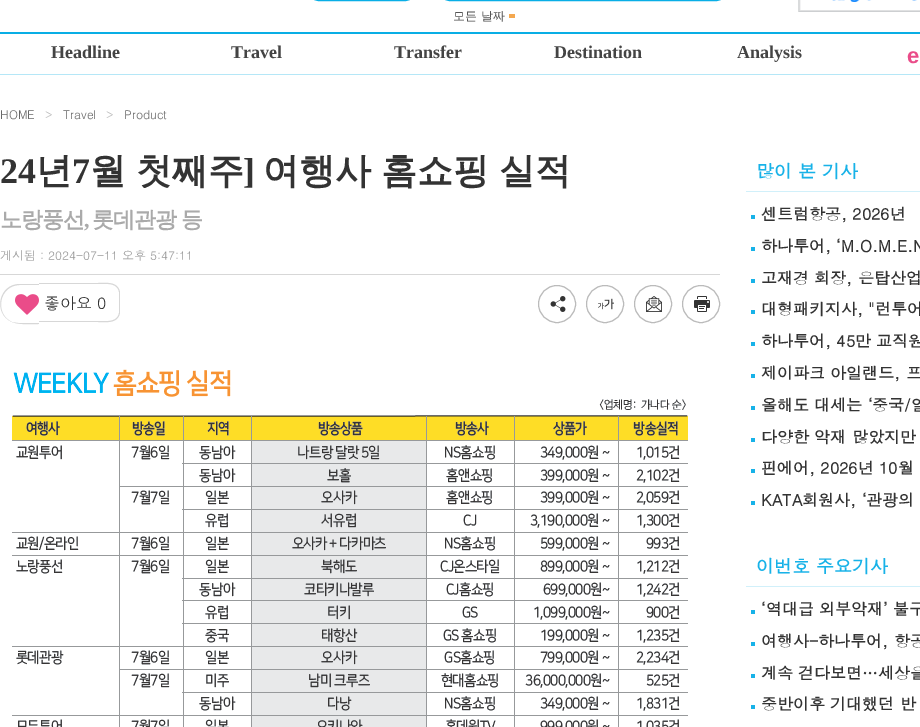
%!PS-Adobe-3.0
%%BoundingBox: 0 0 920 727
%%LanguageLevel: 3
%%Pages: 1
%%EndComments
%%BeginProlog
/m { moveto } bind def
/l { lineto } bind def
/c { curveto } bind def
/h { closepath } bind def
/S { stroke } bind def
/w { setlinewidth } bind def
/fn { [ exch dup neg 0 0 3 -1 roll 0 0 ] selectfont } def
/tx { moveto show } def
/bx { rectfill } def
/ci { newpath 0 360 arc closepath } def
/rr { 5 dict begin { /r /h /w /y /x } { exch def } forall
  x r add y moveto x w add y 2 copy h add r arct x w add y h add x 1 index r arct
  x y h add x y r arct x y 2 copy exch w add exch r arct closepath end } def
/im { 5 dict begin { /h /w /y /x /name } { exch def } forall
  gsave x y translate w h scale
  w h 8 [w 0 0 h 0 0] name (r) file false 3 colorimage grestore end } def
%%EndProlog
%%BeginSetup
<< /PageSize [920 727] >> setpagedevice
%%EndSetup
%%Page: 1 1
0 727 translate 1 -1 scale
4 setmiterlimit
1 setgray
0 0 920 727 bx
(image0.raw) 798 0 122 12 im
0.035 0.682 0.902 setrgbcolor
3 w
300.5 -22.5 123 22 19.5 rr S
431.5 -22.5 303 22 19.5 rr S
0.957 0.659 0.314 setrgbcolor
509 14 6 4 bx
/WenQuanYiZenHei-Medium 12 fn
0.333 setgray
(모든 날짜) 453 20 tx
0.035 0.682 0.898 setrgbcolor
0 32 920 2 bx
0.71 0.906 0.969 setrgbcolor
0 74 920 1 bx
/LiberationSerif-Bold 18 fn
0.267 setgray
(Headline) 51 58 tx
(Travel) 231 58 tx
(Transfer) 394 58 tx
(Destination) 554 58 tx
(Analysis) 737 58 tx
/LiberationSans-Bold 22 fn
0.918 0.298 0.537 setrgbcolor
(e) 907 63 tx
/Dotum-Regular 12 fn
0.4 setgray
(HOME) 0 119 tx
0.733 setgray
(>) 45 119 tx
0.4 setgray
(Travel) 63 119 tx
0.733 setgray
(>) 106 119 tx
0.4 setgray
(Product) 124 119 tx
/LiberationSerif-Bold 36 fn
0.2 setgray
(24) 0 183 tx
/WenQuanYiZenHei-Bold 36 fn
(년) 36 183 tx
/LiberationSerif-Bold 36 fn
(7) 72 183 tx
/WenQuanYiZenHei-Bold 36 fn
90 183 m -1 0 32 (월 첫째주) widthshow
/LiberationSerif-Bold 36 fn
(]) 243 183 tx
/WenQuanYiZenHei-Bold 36 fn
263 183 m -1 0 32 (여행사 홈쇼핑 실적) widthshow
/WenQuanYiZenHei-Bold 22 fn
0.667 setgray
0 227 m -1 0 (노랑풍선) ashow
/LiberationSerif-Bold 22 fn
84 227 m -1 0 (,) ashow
/WenQuanYiZenHei-Bold 22 fn
92 227 m -1 0 32 -1 0 (롯데관광 등) awidthshow
0.843 setgray
0 274 720 1 bx
/Dotum-Regular 12 fn
0.6 setgray
(게시됨 : 2024-07-11 오후 5:47:11) 0 260 tx
0.843 setgray
20 284 m 39 284 l 39 324 l 31 324 19 325 12 322 c -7 314 -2 284 20 284 c h 20 285 m 39 285 l 39 323 l 32 323 19 324 12 322 c -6 314 -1 285 20 285 c h eofill
39 283 59 1 bx
39 321 59 1 bx
98 283 m 106 283 117.5 281 120 292 c 120 302.5 l 120 313 l 117.5 324 106 322 98 322 c h 98 284 m 105.5 284 117 282 119 292 c 119 302.5 l 119 313 l 117 323 105.5 321 98 321 c h eofill
(image1.raw) 15 294 24 21 im
/Dotum-Regular 16 fn
0.2 setgray
(좋아요 0) 44 309 tx
0.733 setgray
1 w
557 304 18.5 ci S
(image2.raw) 550 296 16 16 im
605 304 18.5 ci S
(image3.raw) 598 298 16 12 im
653 304 18.5 ci S
(image4.raw) 646 296 16 16 im
701 304 18.5 ci S
(image5.raw) 694 296 16 16 im
(image6.raw) 12 369 676 358 im
0.82 0.941 0.98 setrgbcolor
746 191 174 1 bx
/Dotum-Bold 18 fn
0.09 0.698 0.91 setrgbcolor
(많이 본 기사) 756 178 tx
751 215 4 4 bx
/Dotum-Bold 16 fn
0.2 setgray
(센트럼항공, 2026년) 761 220 tx
0.09 0.698 0.91 setrgbcolor
751 247 4 4 bx
0.2 setgray
(하나투어, ‘M.O.M.E.N) 761 252 tx
0.09 0.698 0.91 setrgbcolor
751 279 4 4 bx
0.2 setgray
(고재경 회장, 은탑산업) 761 284 tx
0.09 0.698 0.91 setrgbcolor
751 310 4 4 bx
0.2 setgray
(대형패키지사, "런투어) 761 315 tx
0.09 0.698 0.91 setrgbcolor
751 342 4 4 bx
0.2 setgray
(하나투어, 45만 교직원) 761 347 tx
0.09 0.698 0.91 setrgbcolor
751 374 4 4 bx
0.2 setgray
(제이파크 아일랜드, 프) 761 379 tx
0.09 0.698 0.91 setrgbcolor
751 406 4 4 bx
0.2 setgray
(올해도 대세는 ‘중국/일) 761 411 tx
0.09 0.698 0.91 setrgbcolor
751 438 4 4 bx
0.2 setgray
(다양한 악재 많았지만) 761 443 tx
0.09 0.698 0.91 setrgbcolor
751 469 4 4 bx
0.2 setgray
(핀에어, 2026년 10월) 761 474 tx
0.09 0.698 0.91 setrgbcolor
751 501 4 4 bx
0.2 setgray
(KATA회원사, ‘관광의) 761 506 tx
0.82 0.941 0.98 setrgbcolor
746 586 174 1 bx
/Dotum-Bold 18 fn
0.09 0.698 0.91 setrgbcolor
(이번호 주요기사) 756 573 tx
751 610 4 4 bx
/Dotum-Bold 16 fn
0.2 setgray
(‘역대급 외부악재’ 불구) 761 615 tx
0.09 0.698 0.91 setrgbcolor
751 642 4 4 bx
0.2 setgray
(여행사-하나투어, 항공) 761 647 tx
0.09 0.698 0.91 setrgbcolor
751 674 4 4 bx
0.2 setgray
(계속 걷다보면…세상을) 761 679 tx
0.09 0.698 0.91 setrgbcolor
751 705 4 4 bx
0.2 setgray
(중반이후 기대했던 반) 761 710 tx
showpage
%%EOF
